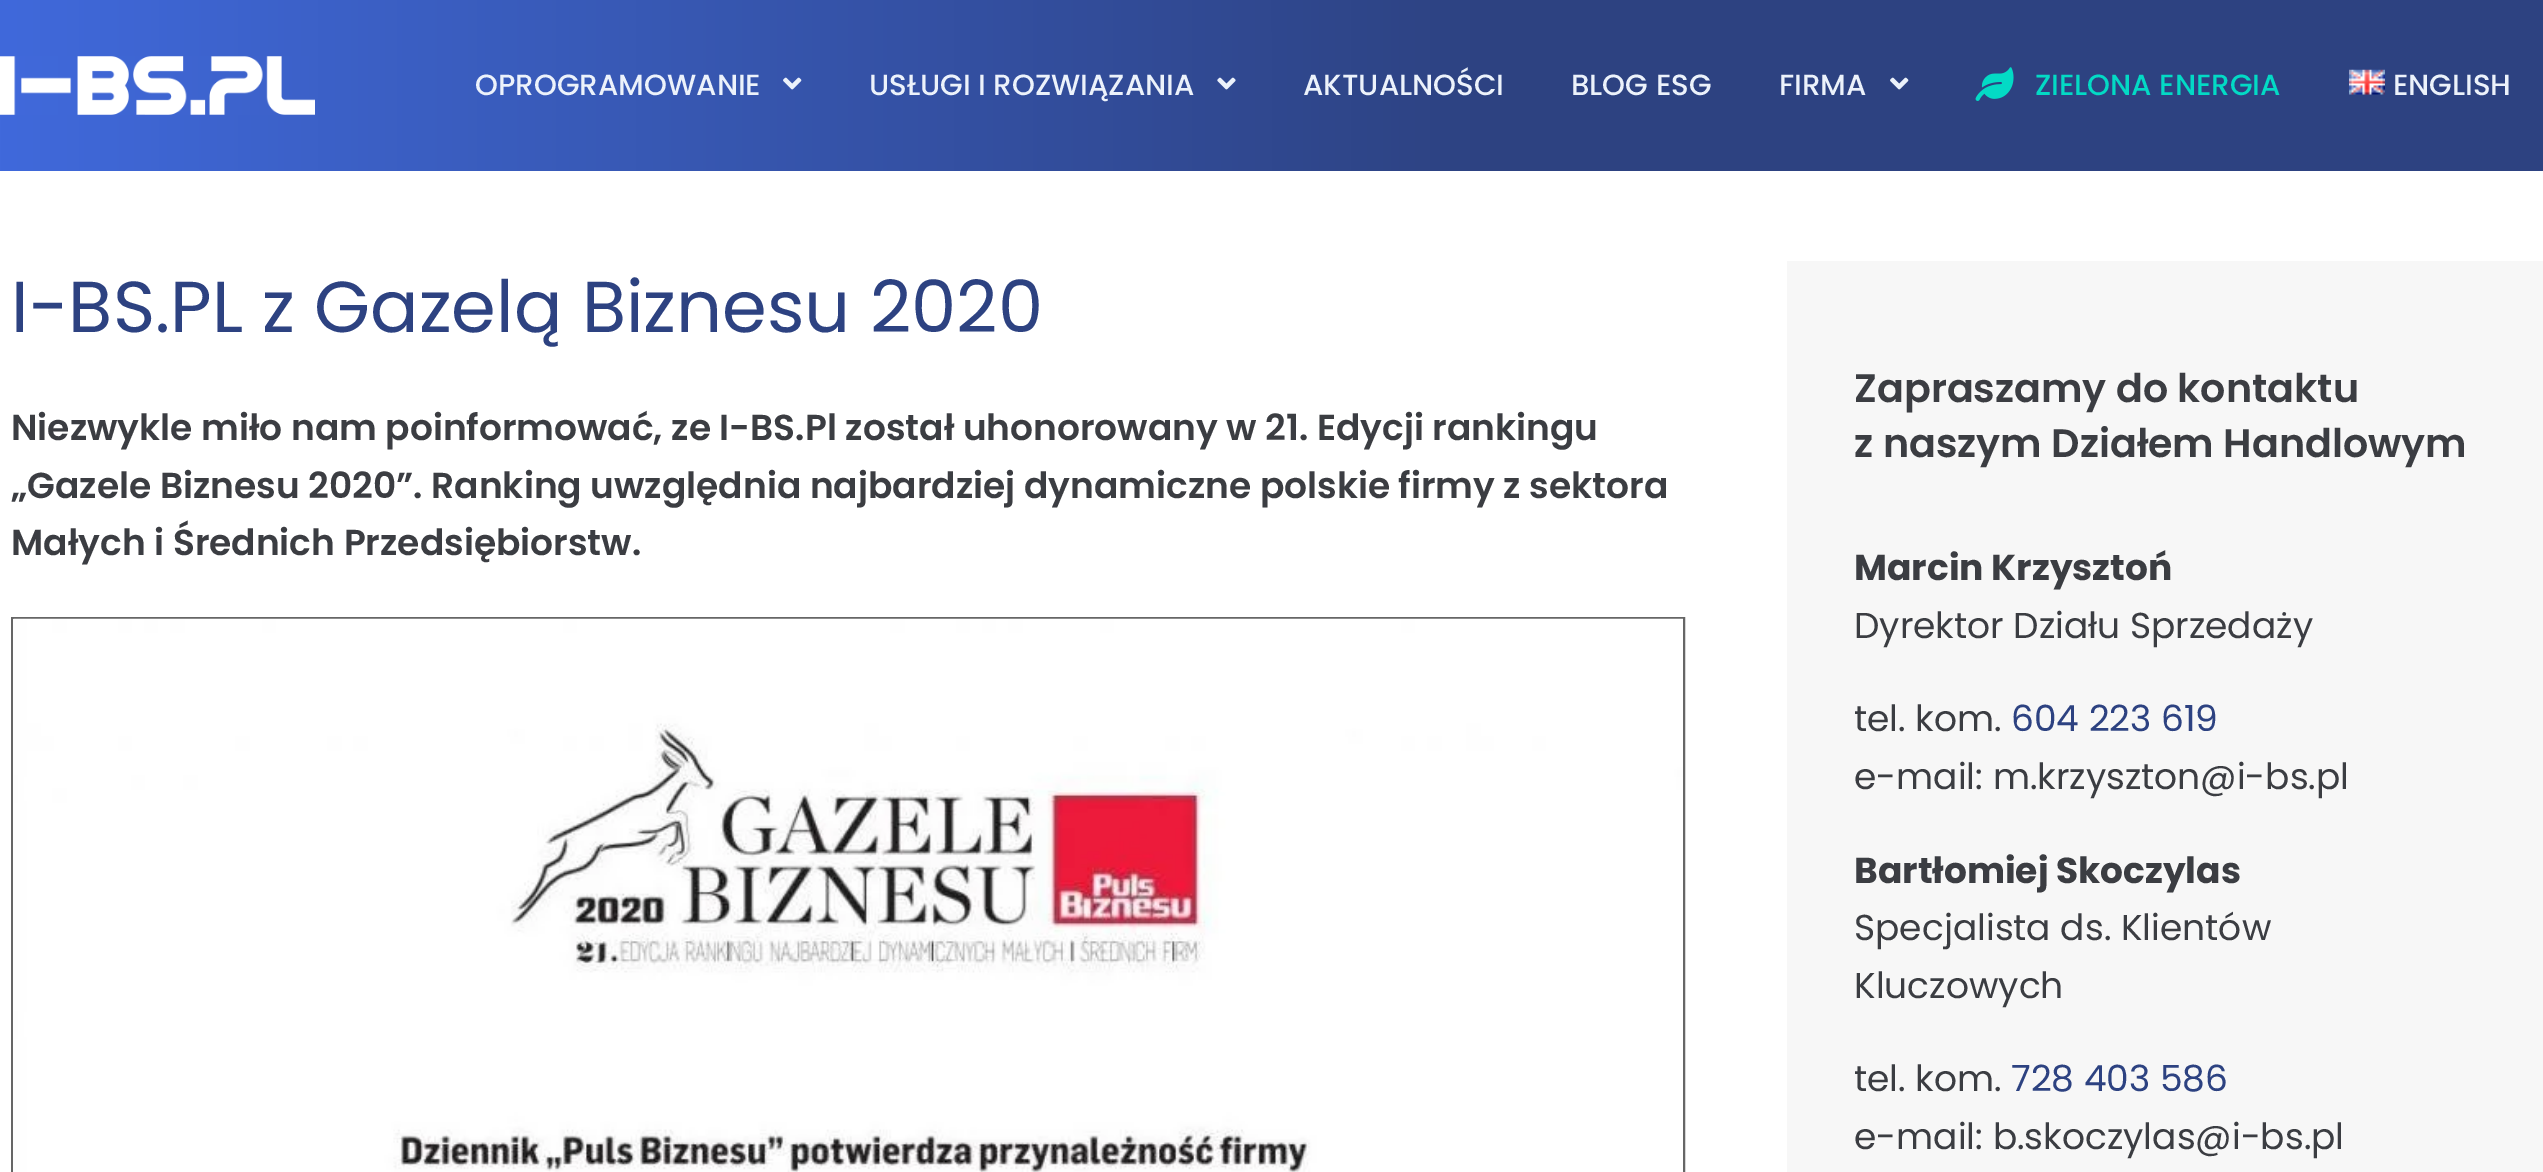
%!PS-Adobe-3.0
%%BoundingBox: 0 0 2543 1172
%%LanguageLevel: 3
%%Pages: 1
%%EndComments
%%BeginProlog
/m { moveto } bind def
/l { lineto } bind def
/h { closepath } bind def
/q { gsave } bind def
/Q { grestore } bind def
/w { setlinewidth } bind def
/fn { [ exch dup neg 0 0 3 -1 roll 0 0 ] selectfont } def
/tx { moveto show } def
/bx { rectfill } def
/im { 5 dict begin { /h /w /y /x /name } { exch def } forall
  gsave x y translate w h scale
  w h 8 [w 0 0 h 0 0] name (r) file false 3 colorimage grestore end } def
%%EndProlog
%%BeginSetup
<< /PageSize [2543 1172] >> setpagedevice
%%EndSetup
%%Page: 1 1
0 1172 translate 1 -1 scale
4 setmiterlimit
1 setgray
0 0 2543 1172 bx
q 0 0 m 2543 0 l 2543 171 l 0 171 l h clip newpath
<< /ShadingType 2 /ColorSpace /DeviceRGB /Coords [0 86 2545 85] /Extend [true true] /Function << /FunctionType 3 /Domain [0 1] /Functions [<< /FunctionType 2 /Domain [0 1] /C0 [0.251 0.412 0.859] /C1 [0.176 0.259 0.506] /N 1 >> << /FunctionType 2 /Domain [0 1] /C0 [0.176 0.259 0.506] /C1 [0.176 0.259 0.506] /N 1 >>] /Bounds [0.59] /Encode [0 1 0 1] >> >> shfill Q
(image0.raw) 0 56 315 59 im
/Poppins-Medium 29.25 fn
0.925 0.949 0.984 setrgbcolor
(OPROGRAMOWANIE) 475 95 tx
(image1.raw) 783 77 19 13 im
(USŁUGI I ROZWIĄZANIA) 869 95 tx
(image2.raw) 1217 77 19 13 im
(AKTUALNOŚCI) 1303 95 tx
(BLOG ESG) 1571 95 tx
(FIRMA) 1779 95 tx
(image3.raw) 1890 77 19 13 im
(image4.raw) 1975 67 39 34 im
0.012 0.855 0.773 setrgbcolor
(ZIELONA ENERGIA) 2035 95 tx
(image5.raw) 2349 69 36 26 im
0.925 0.949 0.984 setrgbcolor
(ENGLISH) 2393 95 tx
/Poppins-Regular 72 fn
0.176 0.259 0.506 setrgbcolor
(I-BS.PL z Gazelą Biznesu 2020) 11 332 tx
/Poppins-SemiBold 36 fn
0.231 0.239 0.259 setrgbcolor
(Niezwykle miło nam poinformować, ze I-BS.Pl został uhonorowany w 21. Edycji rankingu) 11 440 tx
(„Gazele Biznesu 2020”. Ranking uwzględnia najbardziej dynamiczne polskie firmy z sektora) 11 498 tx
(Małych i Średnich Przedsiębiorstw.) 11 555 tx
0.4 setgray
2 w
12 618 1672 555 rectstroke
(image6.raw) 13 618 1670 554 im
0.969 setgray
1787 261 756 911 bx
/Poppins-SemiBold 39.6 fn
0.231 0.239 0.259 setrgbcolor
(Zapraszamy do kontaktu) 1854 402 tx
(z naszym Działem Handlowym) 1854 457 tx
/Poppins-Bold 36 fn
(Marcin Krzysztoń) 1854 580 tx
/Poppins-Regular 36 fn
(Dyrektor Działu Sprzedaży) 1854 638 tx
(tel. kom.) 1854 731 tx
0.176 0.259 0.506 setrgbcolor
(604 223 619) 2011 731 tx
0.231 0.239 0.259 setrgbcolor
(e-mail: m.krzyszton@i-bs.pl) 1854 789 tx
/Poppins-Bold 36 fn
(Bartłomiej Skoczylas) 1854 883 tx
/Poppins-Regular 36 fn
(Specjalista ds. Klientów) 1854 940 tx
(Kluczowych) 1854 998 tx
(tel. kom.) 1854 1091 tx
0.176 0.259 0.506 setrgbcolor
(728 403 586) 2011 1091 tx
0.231 0.239 0.259 setrgbcolor
(e-mail: b.skoczylas@i-bs.pl) 1854 1149 tx
showpage
%%EOF
